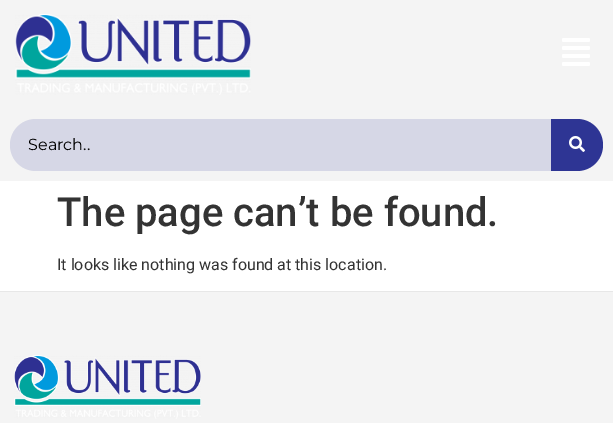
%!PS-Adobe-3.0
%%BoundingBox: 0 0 613 423
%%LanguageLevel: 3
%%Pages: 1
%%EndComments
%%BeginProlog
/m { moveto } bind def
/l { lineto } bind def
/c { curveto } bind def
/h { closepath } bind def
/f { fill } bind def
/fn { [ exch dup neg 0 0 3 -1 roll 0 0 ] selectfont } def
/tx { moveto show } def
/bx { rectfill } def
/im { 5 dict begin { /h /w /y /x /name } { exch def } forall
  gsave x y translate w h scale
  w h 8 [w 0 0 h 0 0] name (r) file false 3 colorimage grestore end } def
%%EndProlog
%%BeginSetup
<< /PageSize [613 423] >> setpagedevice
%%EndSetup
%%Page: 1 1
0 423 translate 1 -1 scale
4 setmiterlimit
1 setgray
0 0 613 423 bx
0.957 setgray
0 0 613 181 bx
(image0.raw) 15 14 236 81 im
(image1.raw) 562 38 28 28 im
0.839 0.843 0.902 setrgbcolor
36 119 m 551 119 l 551 171 l 36 171 l 21.5 171 10 159.5 10 145 c 10 130.5 21.5 119 36 119 c h f
/Montserrat-Regular 16 fn
0 setgray
(Search..) 28 150 tx
0.18 0.208 0.58 setrgbcolor
551 119 m 577 119 l 591.5 119 603 130.5 603 145 c 603 159.5 591.5 171 577 171 c 551 171 l h f
(image2.raw) 569 136 16 16 im
/Roboto-Medium 40 fn
0.2 setgray
(The page can’t be found.) 57 226 tx
/Roboto-Regular 16 fn
(It looks like nothing was found at this location.) 57 270 tx
0.957 setgray
0 292 613 131 bx
0.906 setgray
0 291 613 1 bx
(image3.raw) 14 355 187 64 im
showpage
%%EOF
